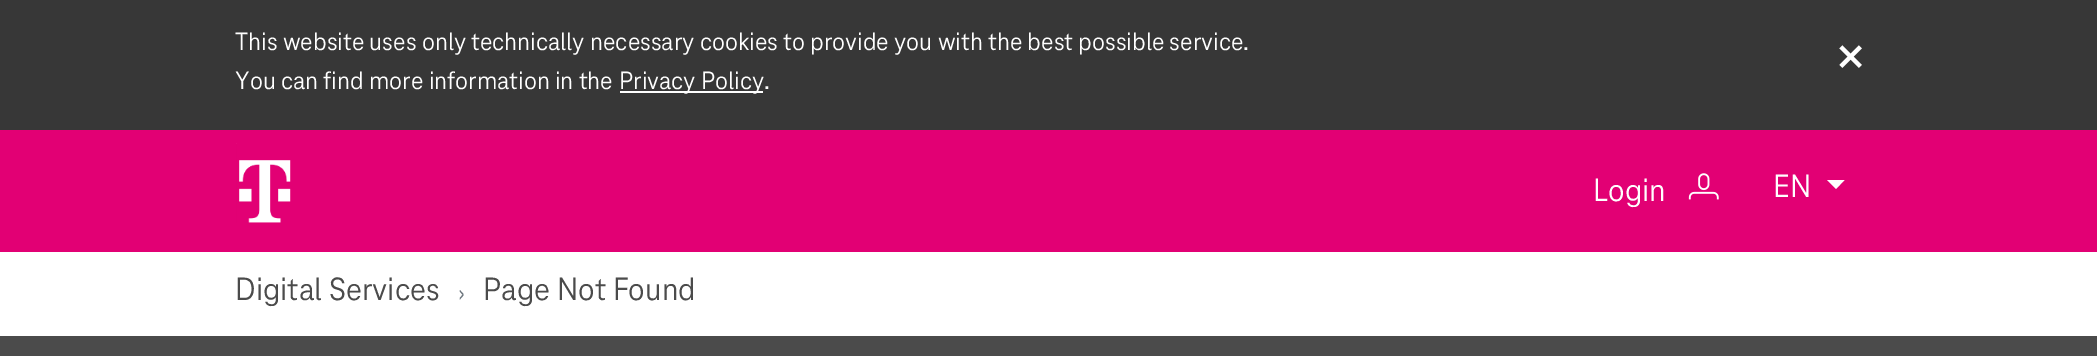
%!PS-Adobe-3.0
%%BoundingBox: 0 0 2097 356
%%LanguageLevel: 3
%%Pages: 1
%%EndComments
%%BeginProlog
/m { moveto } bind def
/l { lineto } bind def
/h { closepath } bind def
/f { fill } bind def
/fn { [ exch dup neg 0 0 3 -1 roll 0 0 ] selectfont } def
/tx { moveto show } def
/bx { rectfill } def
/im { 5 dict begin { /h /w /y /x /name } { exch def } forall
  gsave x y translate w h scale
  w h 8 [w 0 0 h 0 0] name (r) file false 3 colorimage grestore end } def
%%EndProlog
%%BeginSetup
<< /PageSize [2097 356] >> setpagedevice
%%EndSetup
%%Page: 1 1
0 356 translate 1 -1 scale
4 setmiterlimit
0.294 setgray
0 0 2097 356 bx
0.216 setgray
0 0 2097 130 bx
/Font-Regular 26.25 fn
1 setgray
(This website uses only technically necessary cookies to provide you with the best possible service.) 235 50 tx
(You can find more information in the) 235 89 tx
620 91 143 2 bx
(Privacy Policy.) 619 89 tx
/Font-Bold 50 fn
(×) 1837 74 tx
0.886 0 0.455 setrgbcolor
0 130 2097 122 bx
(image0.raw) 236 143 55 80 im
/Font-Regular 33.5 fn
1 setgray
(Login) 1593 201 tx
(image1.raw) 1688 173 31 27 im
(EN) 1773 197 tx
1827 180 m 1844.5 180 l 1836 189 l h f
0 252 2097 84 bx
0.294 setgray
(Digital Services) 235 300 tx
/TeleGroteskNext-Regular 33.5 fn
0.424 0.459 0.49 setrgbcolor
(›) 457 303 tx
/Font-Regular 33.5 fn
0.294 setgray
(Page Not Found) 483 300 tx
showpage
%%EOF
